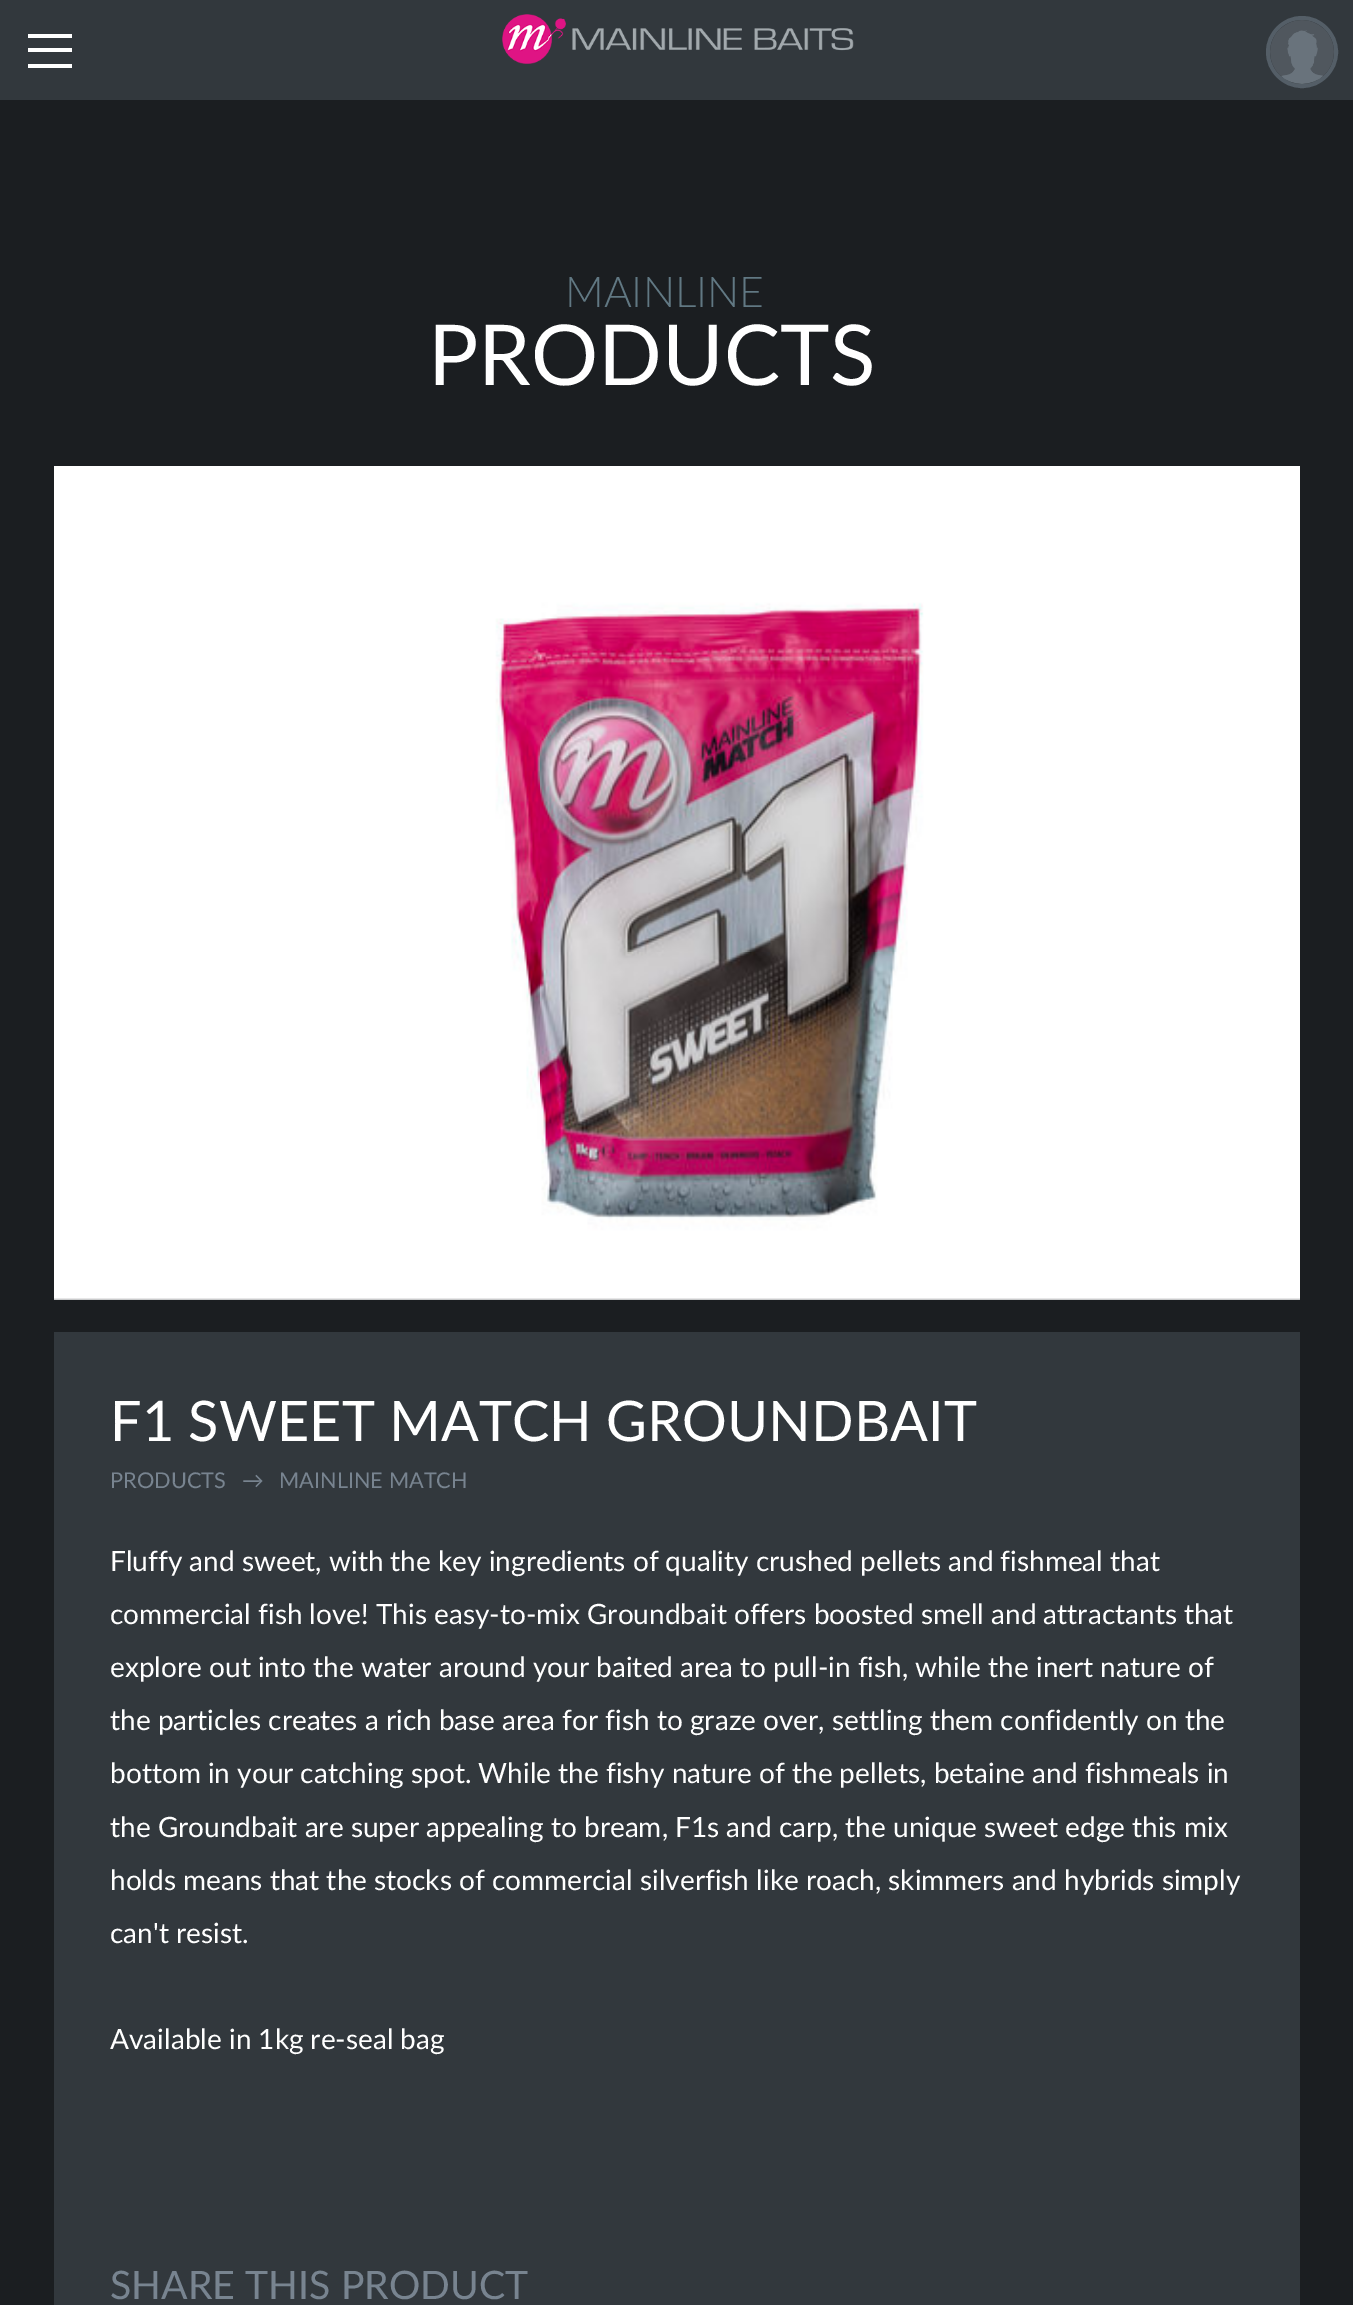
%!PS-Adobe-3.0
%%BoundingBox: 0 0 1353 2305
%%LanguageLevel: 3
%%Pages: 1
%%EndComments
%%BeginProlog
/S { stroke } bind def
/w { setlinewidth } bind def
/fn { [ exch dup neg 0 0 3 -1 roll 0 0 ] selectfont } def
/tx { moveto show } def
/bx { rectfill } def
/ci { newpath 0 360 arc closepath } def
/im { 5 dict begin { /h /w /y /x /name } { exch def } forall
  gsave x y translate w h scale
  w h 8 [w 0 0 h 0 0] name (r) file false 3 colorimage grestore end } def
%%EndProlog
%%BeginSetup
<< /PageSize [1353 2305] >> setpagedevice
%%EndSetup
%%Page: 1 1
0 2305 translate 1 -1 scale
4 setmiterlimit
0.106 0.118 0.129 setrgbcolor
0 0 1353 2305 bx
0.196 0.22 0.239 setrgbcolor
0 0 1353 100 bx
1 setgray
28 34 44 4 bx
28 48 44 4 bx
28 64 44 4 bx
(image0.raw) 502 14 352 50 im
0.329 0.369 0.404 setrgbcolor
4 w
1302 52 34 ci S
(image1.raw) 1270 20 64 64 im
/Lato-Light 42.5 fn
0.38 0.471 0.514 setrgbcolor
(MAINLINE) 565 307 tx
/Lato-Regular 84 fn
1 setgray
(PRODUCTS) 428 385 tx
(image2.raw) 54 466 1246 834 im
0.196 0.22 0.239 setrgbcolor
54 1332 1246 973 bx
/Lato-Regular 56 fn
1 setgray
(F1 SWEET MATCH GROUNDBAIT) 110 1441 tx
/Lato-Regular 21.75 fn
0.471 0.518 0.565 setrgbcolor
(PRODUCTS) 110 1488 tx
(→) 242 1488 tx
(MAINLINE MATCH) 279 1488 tx
/Lato-Regular 28 fn
1 setgray
(Fluffy and sweet, with the key ingredients of quality crushed pellets and fishmeal that) 110 1571 tx
(commercial fish love! This easy-to-mix Groundbait offers boosted smell and attractants that) 110 1624 tx
(explore out into the water around your baited area to pull-in fish, while the inert nature of) 110 1677 tx
(the particles creates a rich base area for fish to graze over, settling them confidently on the) 110 1730 tx
(bottom in your catching spot. While the fishy nature of the pellets, betaine and fishmeals in) 110 1783 tx
(the Groundbait are super appealing to bream, F1s and carp, the unique sweet edge this mix) 110 1837 tx
(holds means that the stocks of commercial silverfish like roach, skimmers and hybrids simply) 110 1890 tx
(can't resist.) 110 1943 tx
(Available in 1kg re-seal bag) 110 2049 tx
/Lato-Regular 39.25 fn
0.471 0.518 0.565 setrgbcolor
(SHARE THIS PRODUCT) 110 2299 tx
showpage
%%EOF
